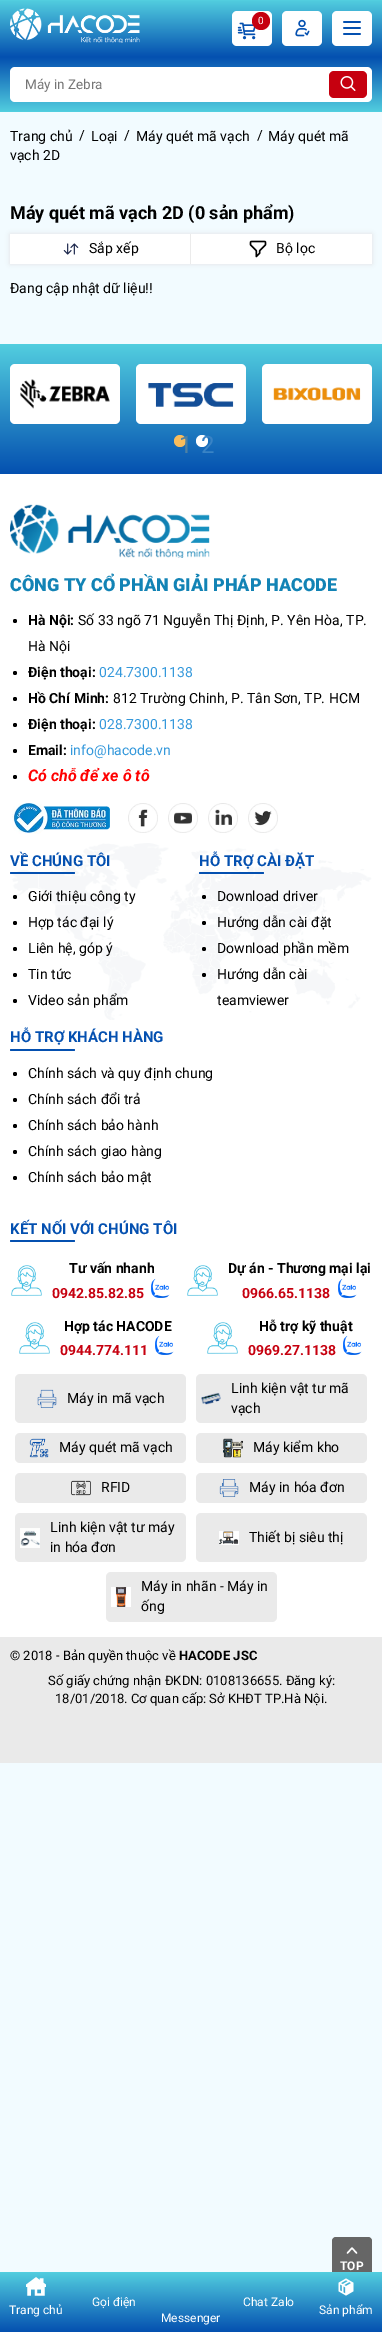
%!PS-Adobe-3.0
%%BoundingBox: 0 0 382 2332
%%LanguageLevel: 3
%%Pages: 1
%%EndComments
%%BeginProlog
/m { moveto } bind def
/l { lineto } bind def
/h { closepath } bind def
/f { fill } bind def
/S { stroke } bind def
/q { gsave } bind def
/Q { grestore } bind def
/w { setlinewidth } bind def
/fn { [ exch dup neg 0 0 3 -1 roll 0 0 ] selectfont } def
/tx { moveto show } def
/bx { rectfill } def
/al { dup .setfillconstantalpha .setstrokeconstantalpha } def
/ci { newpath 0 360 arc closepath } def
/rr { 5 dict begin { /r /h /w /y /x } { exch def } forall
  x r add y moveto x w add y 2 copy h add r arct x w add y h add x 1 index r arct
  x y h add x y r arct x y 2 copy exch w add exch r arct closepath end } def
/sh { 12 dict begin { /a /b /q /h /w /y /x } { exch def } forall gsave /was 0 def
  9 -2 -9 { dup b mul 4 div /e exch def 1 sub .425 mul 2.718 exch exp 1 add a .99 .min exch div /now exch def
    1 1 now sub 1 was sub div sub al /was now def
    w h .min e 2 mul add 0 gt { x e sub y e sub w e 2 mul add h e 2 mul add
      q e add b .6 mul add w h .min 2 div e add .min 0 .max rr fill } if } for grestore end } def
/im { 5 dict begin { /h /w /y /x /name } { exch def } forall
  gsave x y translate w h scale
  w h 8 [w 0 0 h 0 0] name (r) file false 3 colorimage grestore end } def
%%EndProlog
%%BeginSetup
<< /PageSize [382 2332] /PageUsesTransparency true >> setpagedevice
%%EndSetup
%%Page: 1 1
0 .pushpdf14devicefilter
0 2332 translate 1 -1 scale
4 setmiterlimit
0.949 0.984 1 setrgbcolor
0 0 382 2332 bx
q 0 0 m 382 0 l 382 57 l 0 57 l h clip newpath
<< /ShadingType 2 /ColorSpace /DeviceRGB /Coords [191 57 191 0] /Extend [true true] /Function << /FunctionType 2 /Domain [0 1] /C0 [0.016 0.314 0.69] /C1 [0.322 0.808 0.875] /N 1 >> >> shfill Q
(image0.raw) 10 8 130 35 im
1 setgray
232 11 40 35 5 rr f
(image1.raw) 237 22 19 18 im
0.776 0 0.059 setrgbcolor
261 21 9 ci f
/Roboto-Regular 10 fn
1 setgray
(0) 258 24 tx
282 11 40 35 5 rr f
(image2.raw) 295 19 15 18 im
332 11 40 35 5 rr f
(image3.raw) 343 21 18 14 im
q 0 57 m 382 57 l 382 112 l 0 112 l h clip newpath
<< /ShadingType 2 /ColorSpace /DeviceRGB /Coords [191 57 191 112] /Extend [true true] /Function << /FunctionType 2 /Domain [0 1] /C0 [0.016 0.314 0.69] /C1 [0.322 0.808 0.875] /N 1 >> >> shfill Q
10 67 362 35 5 rr f
/Roboto-Regular 13.5 fn
0.459 setgray
(Máy in Zebra) 25 89 tx
0.776 0 0.059 setrgbcolor
329 71 38 27 5 rr f
(image4.raw) 340 76 16 15 im
/Roboto-Regular 14 fn
0 setgray
(Trang chủ) 10 141 tx
(/) 79 140 tx
(Loại) 91 141 tx
(/) 124 140 tx
(Máy quét mã vạch) 136 141 tx
(/) 257 140 tx
(Máy quét mã) 268 141 tx
(vạch 2D) 10 160 tx
/Roboto-Bold 18 fn
(Máy quét mã vạch 2D \(0 sản phẩm\)) 10 219 tx
0.886 setgray
10 234 362 30 0 2.5 1 sh
1 setgray
10 234 180 30 bx
0.922 setgray
190 234 1 30 bx
(image5.raw) 63 243 16 12 im
/Roboto-Regular 14 fn
0 setgray
(Sắp xếp) 89 253 tx
1 setgray
191 234 181 30 bx
(image6.raw) 249 240 18 18 im
0 setgray
(Bộ lọc) 276 253 tx
(Đang cập nhật dữ liệu!!) 10 293 tx
q 0 344 m 382 344 l 382 474 l 0 474 l h clip newpath
<< /ShadingType 2 /ColorSpace /DeviceRGB /Coords [191 474 191 344] /Extend [true true] /Function << /FunctionType 2 /Domain [0 1] /C0 [0.016 0.314 0.69] /C1 [0.322 0.808 0.875] /N 1 >> >> shfill Q
1 setgray
10 364 110 60 5 rr f
(image7.raw) 20 379 90 30 im
136 364 110 60 5 rr f
(image8.raw) 148 383 86 24 im
262 364 110 60 5 rr f
(image9.raw) 273 387 88 14 im
0.98 0.741 0.361 setrgbcolor
180 441 6 ci f
/Roboto-Regular 24 fn
0.31 0.506 0.639 setrgbcolor
(1) 179 453 tx
1 setgray
202 441 6 ci f
0.224 0.514 0.773 setrgbcolor
(2) 201 453 tx
1 setgray
0 474 382 1163 bx
(image10.raw) 10 843 362 177 im
(image11.raw) 10 504 200 54 im
/Roboto-Black 18 fn
0.071 0.514 0.71 setrgbcolor
(CÔNG TY CỔ PHẦN GIẢI PHÁP HACODE) 10 591 tx
0 setgray
15 621 2 ci f
/Roboto-Bold 14 fn
(Hà Nội:) 28 625 tx
/Roboto-Regular 14 fn
(Số 33 ngõ 71 Nguyễn Thị Định, P. Yên Hòa, TP.) 78 625 tx
(Hà Nội) 28 651 tx
15 673 2 ci f
/Roboto-Bold 14 fn
(Điện thoại:) 28 677 tx
/Roboto-Regular 14 fn
0.204 0.596 0.859 setrgbcolor
(024.7300.1138) 99 677 tx
0 setgray
15 699 2 ci f
/Roboto-Bold 14 fn
(Hồ Chí Minh:) 28 703 tx
/Roboto-Regular 14 fn
(812 Trường Chinh, P. Tân Sơn, TP. HCM) 113 703 tx
15 725 2 ci f
/Roboto-Bold 14 fn
(Điện thoại:) 28 729 tx
/Roboto-Regular 14 fn
0.204 0.596 0.859 setrgbcolor
(028.7300.1138) 99 729 tx
0 setgray
15 751 2 ci f
/Roboto-Bold 14 fn
(Email:) 28 755 tx
/Roboto-Regular 14 fn
0.204 0.596 0.859 setrgbcolor
(info@hacode.vn) 70 755 tx
0 setgray
15 777 2 ci f
/Roboto-BoldItalic 16 fn
1 0 0 setrgbcolor
(Có chỗ để xe ô tô) 28 781 tx
(image12.raw) 12 803 98 31 im
(image13.raw) 128 803 30 30 im
(image14.raw) 168 803 30 30 im
(image15.raw) 208 803 30 30 im
(image16.raw) 248 803 30 30 im
/Roboto-Bold 15 fn
0.016 0.314 0.69 setrgbcolor
(VỀ CHÚNG TÔI) 10 866 tx
10 872 65 2 1 rr f
0 setgray
15 897 2 ci f
/Roboto-Regular 14 fn
(Giới thiệu công ty) 28 901 tx
15 923 2 ci f
(Hợp tác đại lý) 28 927 tx
15 949 2 ci f
(Liên hệ, góp ý) 28 953 tx
15 975 2 ci f
(Tin tức) 28 979 tx
15 1001 2 ci f
(Video sản phẩm) 28 1005 tx
/Roboto-Bold 15 fn
0.016 0.314 0.69 setrgbcolor
(HỖ TRỢ CÀI ĐẶT) 199 866 tx
199 872 65 2 1 rr f
0 setgray
204 897 2 ci f
/Roboto-Regular 14 fn
(Download driver) 217 901 tx
204 923 2 ci f
(Hướng dẫn cài đặt) 217 927 tx
204 949 2 ci f
(Download phần mềm) 217 953 tx
204 975 2 ci f
(Hướng dẫn cài) 217 979 tx
(teamviewer) 217 1005 tx
/Roboto-Bold 15 fn
0.016 0.314 0.69 setrgbcolor
(HỖ TRỢ KHÁCH HÀNG) 10 1042 tx
10 1049 65 2 1 rr f
0 setgray
15 1074 2 ci f
/Roboto-Regular 14 fn
(Chính sách và quy định chung) 28 1078 tx
15 1100 2 ci f
(Chính sách đổi trả) 28 1104 tx
15 1126 2 ci f
(Chính sách bảo hành) 28 1130 tx
15 1152 2 ci f
(Chính sách giao hàng) 28 1156 tx
15 1178 2 ci f
(Chính sách bảo mật) 28 1182 tx
/Roboto-Bold 15 fn
0.016 0.314 0.69 setrgbcolor
(KẾT NỐI VỚI CHÚNG TÔI) 10 1234 tx
10 1240 65 2 1 rr f
(image17.raw) 11 1265 31 31 im
/Roboto-Bold 14 fn
0 setgray
(Tư vấn nhanh) 69 1273 tx
0.776 0 0.059 setrgbcolor
(0942.85.82.85) 52 1298 tx
(image18.raw) 151 1278 19 20 im
(image19.raw) 187 1265 31 31 im
0 setgray
(Dự án - Thương mại lại) 228 1273 tx
0.776 0 0.059 setrgbcolor
(0966.65.1138) 242 1298 tx
(image20.raw) 338 1278 19 20 im
(image21.raw) 19 1322 31 32 im
0 setgray
(Hợp tác HACODE) 64 1331 tx
0.776 0 0.059 setrgbcolor
(0944.774.111) 60 1355 tx
(image18.raw) 155 1335 19 20 im
(image21.raw) 207 1322 31 32 im
0 setgray
(Hỗ trợ kỹ thuật) 259 1331 tx
0.776 0 0.059 setrgbcolor
(0969.27.1138) 248 1355 tx
(image20.raw) 343 1335 19 20 im
0.918 setgray
15 1374 171 49 5 rr f
(image22.raw) 37 1389 20 19 im
/Roboto-Regular 14 fn
0 setgray
(Máy in mã vạch) 67 1403 tx
0.918 setgray
196 1374 171 49 5 rr f
0 setgray
(Linh kiện vật tư mã) 231 1393 tx
(image23.raw) 201 1392 20 13 im
(vạch) 231 1413 tx
0.918 setgray
15 1433 171 30 5 rr f
(image24.raw) 29 1438 20 20 im
0 setgray
(Máy quét mã vạch) 59 1452 tx
0.918 setgray
196 1433 171 30 5 rr f
(image25.raw) 223 1438 20 20 im
0 setgray
(Máy kiểm kho) 253 1452 tx
0.918 setgray
15 1473 171 30 5 rr f
(image26.raw) 71 1480 20 16 im
0 setgray
(RFID) 101 1492 tx
0.918 setgray
196 1473 171 30 5 rr f
(image27.raw) 219 1479 20 18 im
0 setgray
(Máy in hóa đơn) 249 1492 tx
0.918 setgray
15 1513 171 49 5 rr f
(image28.raw) 20 1528 20 20 im
0 setgray
(Linh kiện vật tư máy) 50 1532 tx
(in hóa đơn) 50 1552 tx
0.918 setgray
196 1513 171 49 5 rr f
(image29.raw) 219 1531 20 14 im
0 setgray
(Thiết bị siêu thị) 249 1542 tx
0.918 setgray
106 1572 171 50 5 rr f
(image30.raw) 111 1587 20 20 im
0 setgray
(Máy in nhãn - Máy in) 141 1591 tx
(ống) 141 1611 tx
0.918 setgray
0 1637 382 126 bx
/Roboto-Regular 13 fn
0 setgray
(© 2018 - Bản quyền thuộc về) 10 1660 tx
/Roboto-Bold 13 fn
(HACODE JSC) 179 1660 tx
/Roboto-Regular 13 fn
(Số giấy chứng nhận ĐKDN: 0108136655. Đăng ký:) 48 1685 tx
(18/01/2018. Cơ quan cấp: Sở KHĐT TP.Hà Nội.) 55 1703 tx
0.4 setgray
332 2237 40 40 4 rr f
1 setgray
1.4 w
1 setlinecap
1 setlinejoin
356.5 2253 m 352 2248 l 347.5 2253 l S
/Roboto-Bold 12 fn
(TOP) 340 2270 tx
q 0 2272 m 382 2272 l 382 2332 l 0 2332 l h clip newpath
<< /ShadingType 2 /ColorSpace /DeviceRGB /Coords [191 2332 191 2272] /Extend [true true] /Function << /FunctionType 2 /Domain [0 1] /C0 [0.016 0.314 0.69] /C1 [0.322 0.808 0.875] /N 1 >> >> shfill Q
/Roboto-Regular 12 fn
(Gọi điện) 92 2306 tx
(Chat Zalo) 243 2306 tx
(image31.raw) 26 2277 20 19 im
(Trang chủ) 9 2314 tx
(image32.raw) 338 2278 16 18 im
(Sản phẩm) 319 2314 tx
(Messenger) 161 2322 tx
.poppdf14devicefilter showpage
%%EOF
